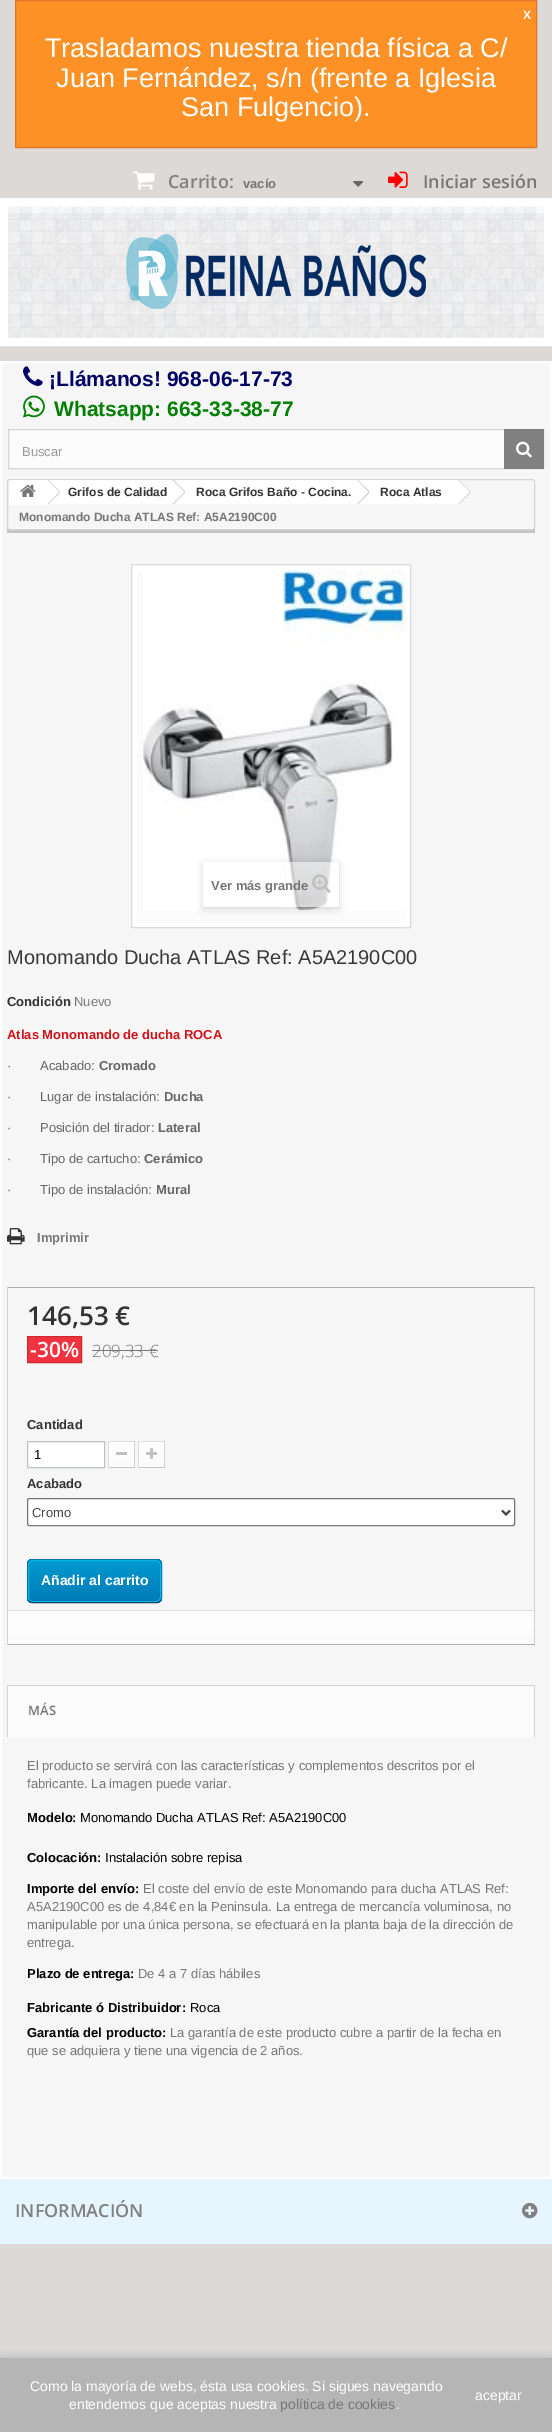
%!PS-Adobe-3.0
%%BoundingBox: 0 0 552 2432
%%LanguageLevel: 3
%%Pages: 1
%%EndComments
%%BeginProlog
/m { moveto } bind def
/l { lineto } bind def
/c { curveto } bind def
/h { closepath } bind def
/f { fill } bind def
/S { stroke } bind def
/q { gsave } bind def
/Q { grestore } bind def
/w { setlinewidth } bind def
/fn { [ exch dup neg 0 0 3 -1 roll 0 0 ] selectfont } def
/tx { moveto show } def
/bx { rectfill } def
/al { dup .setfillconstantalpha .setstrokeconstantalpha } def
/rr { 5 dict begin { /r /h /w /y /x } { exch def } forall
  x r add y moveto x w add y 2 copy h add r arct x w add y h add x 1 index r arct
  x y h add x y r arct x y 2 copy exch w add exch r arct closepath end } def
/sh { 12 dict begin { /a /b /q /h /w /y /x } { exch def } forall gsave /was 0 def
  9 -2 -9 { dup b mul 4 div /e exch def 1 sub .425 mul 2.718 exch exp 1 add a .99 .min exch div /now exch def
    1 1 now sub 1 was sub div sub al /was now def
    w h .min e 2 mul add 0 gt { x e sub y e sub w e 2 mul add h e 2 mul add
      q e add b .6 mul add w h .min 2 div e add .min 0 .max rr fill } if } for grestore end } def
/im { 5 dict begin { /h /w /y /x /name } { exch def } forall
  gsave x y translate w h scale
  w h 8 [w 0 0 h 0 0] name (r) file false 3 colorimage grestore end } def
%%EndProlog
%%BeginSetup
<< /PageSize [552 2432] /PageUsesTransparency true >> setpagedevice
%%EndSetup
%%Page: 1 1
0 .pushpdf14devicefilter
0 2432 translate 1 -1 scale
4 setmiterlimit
0.867 0.851 0.843 setrgbcolor
0 0 552 2432 bx
0.996 0.569 0.149 setrgbcolor
15.5 0.5 m 536.5 0.5 l 536.5 147.5 l 15.5 147.5 l h q f Q
0.894 0.459 0.169 setrgbcolor
S
/LiberationSans-Bold 12 fn
1 setgray
(X) 523 19 tx
/LiberationSans-Regular 27 fn
(Trasladamos nuestra tienda física a C/) 45 57 tx
(Juan Fernández, s/n \(frente a Iglesia) 56 87 tx
(San Fulgencio\).) 181 116 tx
(image0.raw) 133 171 22 19 im
/OpenSans-SemiBold 18 fn
0.502 setgray
(Carrito:) 168 188 tx
/LiberationSans-Bold 13 fn
0.467 setgray
(vacío) 243 188 tx
(image1.raw) 353 181 10 6 im
(image2.raw) 388 171 20 17 im
/OpenSans-SemiBold 18 fn
(Iniciar sesión) 423 188 tx
(image3.raw) 8 206 536 132 im
1 setgray
8 w
4 202 544 140 rectstroke
(image4.raw) 126 234 300 75 im
0.969 0.965 0.965 setrgbcolor
1 362 m 551 362 l 551 2178 l 1 2178 l h q f Q
1 setgray
2 w
S
(image5.raw) 23 366 20 20 im
/LiberationSans-Bold 21 fn
0 0 0.4 setrgbcolor
(¡Llámanos! 968-06-17-73) 49 386 tx
(image6.raw) 23 395 22 23 im
0 0.502 0 setrgbcolor
(Whatsapp: 663-33-38-77) 54 416 tx
0.984 setgray
9 430 495 38 bx
0.839 0.831 0.831 setrgbcolor
1 w
8.5 429.5 535 39 rectstroke
/LiberationSans-Regular 13 fn
0.6 setgray
(Buscar) 22 456 tx
0.502 setgray
504 429 40 40 bx
(image7.raw) 516 441 16 17 im
0.769 setgray
7 528 528 5 bx
0.965 setgray
7.5 479.5 527 50 2.5 rr q f Q
0.839 0.831 0.831 setrgbcolor
S
1 setgray
12 480 m 47 480 l 47 505 l 12 505 l 10.5 505 9 503.5 9 502 c 9 483 l 9 481.5 10.5 480 12 480 c h f
(image8.raw) 20 484 16 13 im
47 480 127 24 bx
0.839 0.831 0.831 setrgbcolor
48.5 480 m 60 491.5 l 59.5 492 l 48 480.5 l h 59.5 492 m 60 493 l 48.5 504 l 48 503.5 l h f
/LiberationSans-Bold 12 fn
0.2 setgray
(Grifos de Calidad) 68 496 tx
1 setgray
184.5 480.5 m 194.5 490.5 l 195 491.5 195 492.5 194.5 493.5 c 184.5 503.5 l 183.5 504 182.5 504 181.5 503.5 c 171.5 493.5 l 171 492.5 171 491.5 171.5 490.5 c 181.5 480.5 l 182.5 480 183.5 480 184.5 480.5 c h f
174 480 184 24 bx
0.839 0.831 0.831 setrgbcolor
174 480 m 185 491.5 l 184.5 492 l 173 480.5 l h 184.5 492 m 185 493 l 174 504 l 173 503.5 l h f
0.2 setgray
(Roca Grifos Baño - Cocina.) 196 496 tx
1 setgray
369 480.5 m 378.5 490.5 l 379.5 491.5 379.5 492.5 378.5 493.5 c 369 503.5 l 368 504 367 504 366 503.5 c 356 493.5 l 355.5 492.5 355.5 491.5 356 490.5 c 366 480.5 l 367 480 368 480 369 480.5 c h f
358 480 99 24 bx
0.839 0.831 0.831 setrgbcolor
358 480 m 369.5 491.5 l 368.5 492 l 357.5 480.5 l h 368.5 492 m 369.5 493 l 358 504 l 357.5 503.5 l h f
0.2 setgray
(Roca Atlas) 380 496 tx
1 setgray
460 480.5 m 470 490.5 l 470.5 491.5 470.5 492.5 470 493.5 c 460 503.5 l 459 504 458 504 457 503.5 c 447 493.5 l 446.5 492.5 446.5 491.5 447 490.5 c 457 480.5 l 458 480 459 480 460 480.5 c h f
0.839 0.831 0.831 setrgbcolor
459 480 m 470.5 491.5 l 470 492 l 458.5 480.5 l h 470 492 m 470.5 493 l 459 504 l 458.5 503.5 l h f
0.467 setgray
(Monomando Ducha ATLAS Ref: A5A2190C00) 19 521 tx
1 setgray
131.5 564.5 m 410.5 564.5 l 410.5 927.5 l 131.5 927.5 l h q f Q
0.859 setgray
S
0.984 setgray
137 570 268 352 bx
(image9.raw) 143 570 262 341 im
q
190 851 m 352 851 l 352 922 l 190 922 l h 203 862 m 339 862 l 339 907 l 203 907 l h eoclip newpath
0 setgray
203 864 136 45 0 4 0.16 sh
Q
0.5 al
1 setgray
287 862 45 45 bx
/LiberationSans-Bold 13 fn
1 al
0.467 setgray
(Ver más grande) 211 890 tx
(image10.raw) 312 874 19 19 im
/LiberationSans-Regular 20 fn
0.227 0.224 0.224 setrgbcolor
(Monomando Ducha ATLAS Ref: A5A2190C00) 7 964 tx
/LiberationSans-Bold 13 fn
0.2 setgray
(Condición) 7 1006 tx
/LiberationSans-Regular 13 fn
0.467 setgray
(Nuevo) 74 1006 tx
/LiberationSans-Bold 13 fn
0.816 0.071 0.102 setrgbcolor
(Atlas Monomando de ducha ROCA) 7 1039 tx
/LiberationSans-Regular 13 fn
0.4 setgray
(·) 7 1070 tx
(Acabado:) 40 1070 tx
/LiberationSans-Bold 13 fn
(Cromado) 99 1070 tx
/LiberationSans-Regular 13 fn
(·) 7 1101 tx
(Lugar de instalación:) 40 1101 tx
/LiberationSans-Bold 13 fn
(Ducha) 164 1101 tx
/LiberationSans-Regular 13 fn
(·) 7 1132 tx
(Posición del tirador:) 40 1132 tx
/LiberationSans-Bold 13 fn
(Lateral) 158 1132 tx
/LiberationSans-Regular 13 fn
(·) 7 1163 tx
(Tipo de cartucho:) 40 1163 tx
/LiberationSans-Bold 13 fn
(Cerámico) 144 1163 tx
/LiberationSans-Regular 13 fn
(·) 7 1194 tx
(Tipo de instalación:) 40 1194 tx
/LiberationSans-Bold 13 fn
(Mural) 156 1194 tx
(image11.raw) 7 1228 18 17 im
0.467 setgray
(Imprimir) 37 1242 tx
0.69 0.686 0.686 setrgbcolor
7 1287 528 1 bx
0.824 0.816 0.816 setrgbcolor
534 1287 1 358 bx
0.69 0.686 0.686 setrgbcolor
7 1644 528 1 bx
0.824 0.816 0.816 setrgbcolor
7 1287 1 358 bx
/OpenSans-SemiBold 26 fn
0.2 setgray
(146,53 €) 27 1325 tx
0.945 0.2 0.251 setrgbcolor
27.5 1336.5 m 81.5 1336.5 l 81.5 1362.5 l 27.5 1362.5 l h q f Q
0.816 0.165 0.173 setrgbcolor
S
/OpenSans-SemiBold 21 fn
1 setgray
(-30%) 30 1357 tx
/OpenSans-Light 17 fn
0.467 setgray
(209,33 €) 92 1357 tx
92 1350 66 1 bx
/LiberationSans-Bold 13 fn
0.2 setgray
(Cantidad) 27 1429 tx
1 setgray
27.5 1441.5 m 104.5 1441.5 l 104.5 1467.5 l 27.5 1467.5 l h q f Q
0.741 0.761 0.788 setrgbcolor
S
/LiberationSans-Regular 13 fn
0 setgray
(1) 34 1459 tx
0.871 0.863 0.863 setrgbcolor
108 1441 27 1 bx
0.757 0.749 0.749 setrgbcolor
134 1441 1 27 bx
0.71 0.706 0.706 setrgbcolor
108 1467 27 1 bx
0.855 0.847 0.847 setrgbcolor
108 1441 1 27 bx
q 110 1443 m 133 1443 l 133 1466 l 110 1466 l h clip newpath
<< /ShadingType 2 /ColorSpace /DeviceRGB /Coords [122 1443 122 1466] /Extend [true true] /Function << /FunctionType 2 /Domain [0 1] /C0 [1 1 1] /C1 [0.984 0.984 0.984] /N 1 >> >> shfill Q
1 setgray
109.5 1442.5 24 24 rectstroke
0.753 setgray
116 1452 11 3 bx
0.871 0.863 0.863 setrgbcolor
138 1441 27 1 bx
0.757 0.749 0.749 setrgbcolor
164 1441 1 27 bx
0.71 0.706 0.706 setrgbcolor
138 1467 27 1 bx
0.855 0.847 0.847 setrgbcolor
138 1441 1 27 bx
q 140 1443 m 163 1443 l 163 1466 l 140 1466 l h clip newpath
<< /ShadingType 2 /ColorSpace /DeviceRGB /Coords [152 1443 152 1466] /Extend [true true] /Function << /FunctionType 2 /Domain [0 1] /C0 [1 1 1] /C1 [0.984 0.984 0.984] /N 1 >> >> shfill Q
1 setgray
139.5 1442.5 24 24 rectstroke
(image12.raw) 146 1448 11 11 im
/LiberationSans-Bold 13 fn
0.2 setgray
(Acabado) 27 1488 tx
1 setgray
27.5 1498.5 487 27 1.5 rr q f Q
0.463 setgray
S
0.267 setgray
2 w
502 1510.5 m 506 1514.5 l 510 1510.5 l S
/LiberationSans-Regular 13 fn
(Cromo) 32 1517 tx
q
27 1559 135 44 5 rr clip newpath
q 27 1559 m 162 1559 l 162 1560 l 27 1560 l h clip newpath
<< /ShadingType 2 /ColorSpace /DeviceRGB /Coords [95 1518 95 1560] /Extend [true true] /Function << /FunctionType 2 /Domain [0 1] /C0 [0 0.604 0.816] /C1 [0 0.478 0.718] /N 1 >> >> shfill Q
q 27 1560 m 162 1560 l 162 1602 l 27 1602 l h clip newpath
<< /ShadingType 2 /ColorSpace /DeviceRGB /Coords [95 1560 95 1602] /Extend [true true] /Function << /FunctionType 2 /Domain [0 1] /C0 [0 0.604 0.816] /C1 [0 0.478 0.718] /N 1 >> >> shfill Q
q 27 1602 m 162 1602 l 162 1603 l 27 1603 l h clip newpath
<< /ShadingType 2 /ColorSpace /DeviceRGB /Coords [95 1602 95 1644] /Extend [true true] /Function << /FunctionType 2 /Domain [0 1] /C0 [0 0.604 0.816] /C1 [0 0.478 0.718] /N 1 >> >> shfill Q
Q
0 0.475 0.714 setrgbcolor
1 w
29 1561 m 31.5 1559.5 l 136 1559.5 l 157 1559.5 l 160 1561 l S
0 0.435 0.659 setrgbcolor
160 1561 m 161 1561.5 161.5 1563 161.5 1564 c 161.5 1598 l 161.5 1599 161 1600.5 160 1601 c S
0.004 0.153 0.251 setrgbcolor
160 1601 m 157.5 1602.5 l 53 1602.5 l 32 1602.5 l 29 1601 l S
0 0.435 0.659 setrgbcolor
29 1601 m 28 1600.5 27.5 1599 27.5 1598 c 27.5 1564 l 27.5 1563 28 1561.5 29 1561 c S
0.024 0.698 0.902 setrgbcolor
28.5 1560.5 132 41 4.5 rr S
/LiberationSans-Bold 14 fn
1 setgray
(Añadir al carrito) 41 1585 tx
q 8 1611 m 534 1611 l 534 1644 l 8 1644 l h clip newpath
<< /ShadingType 2 /ColorSpace /DeviceRGB /Coords [271 1611 271 1644] /Extend [true true] /Function << /FunctionType 2 /Domain [0 1] /C0 [1 1 1] /C1 [0.984 0.984 0.984] /N 1 >> >> shfill Q
0.875 0.871 0.871 setrgbcolor
8 1610 526 1 bx
0.984 setgray
8 1686 526 51 bx
0.839 0.831 0.831 setrgbcolor
7 1685 528 1 bx
534 1685 1 52 bx
7 1685 1 52 bx
/OpenSans-SemiBold 13 fn
0.467 setgray
(MÁS) 28 1715 tx
/LiberationSans-Regular 13 fn
(El producto se servirá con las características y complementos descritos por el) 27 1770 tx
(fabricante. La imagen puede variar.) 27 1788 tx
/LiberationSans-Bold 13 fn
0 setgray
(Modelo:) 27 1822 tx
/LiberationSans-Regular 13 fn
(Monomando Ducha ATLAS Ref: A5A2190C00) 80 1822 tx
/LiberationSans-Bold 13 fn
(Colocación:) 27 1862 tx
/LiberationSans-Regular 13 fn
(Instalación sobre repisa) 105 1862 tx
/LiberationSans-Bold 13 fn
(Importe del envío:) 27 1893 tx
/LiberationSans-Regular 13 fn
0.467 setgray
(El coste del envío de este Monomando para ducha ATLAS Ref:) 143 1893 tx
(A5A2190C00 es de 4,84€ en la Peninsula. La entrega de mercancía voluminosa, no) 27 1911 tx
(manipulable por una única persona, se efectuará en la planta baja de la dirección de) 27 1929 tx
(entrega.) 27 1947 tx
/LiberationSans-Bold 13 fn
0 setgray
(Plazo de entrega:) 27 1978 tx
/LiberationSans-Regular 13 fn
0.467 setgray
(De 4 a 7 días hábiles) 138 1978 tx
/LiberationSans-Bold 13 fn
0 setgray
(Fabricante ó Distribuidor:) 27 2012 tx
/LiberationSans-Regular 13 fn
(Roca) 190 2012 tx
/LiberationSans-Bold 13 fn
(Garantía del producto:) 27 2037 tx
/LiberationSans-Regular 13 fn
0.467 setgray
(La garantía de este producto cubre a partir de la fecha en) 170 2037 tx
(que se adquiera y tiene una vigencia de 2 años.) 27 2055 tx
0.902 0.961 1 setrgbcolor
0 2179 552 65 bx
/OpenSans-SemiBold 18 fn
0.502 setgray
(INFORMACIÓN) 15 2217 tx
(image13.raw) 522 2202 16 17 im
0.659 0.686 0.702 setrgbcolor
0 2358 552 74 0 5 1 sh
0.71 setgray
0 2358 552 74 bx
/LiberationSans-Regular 14 fn
1 setgray
(Como la mayoría de webs, ésta usa cookies. Si sigues navegando) 30 2391 tx
(entendemos que aceptas nuestra) 69 2409 tx
0.467 setgray
(política de cookies) 280 2409 tx
1 setgray
(.) 396 2409 tx
(aceptar) 475 2400 tx
.poppdf14devicefilter showpage
%%EOF
